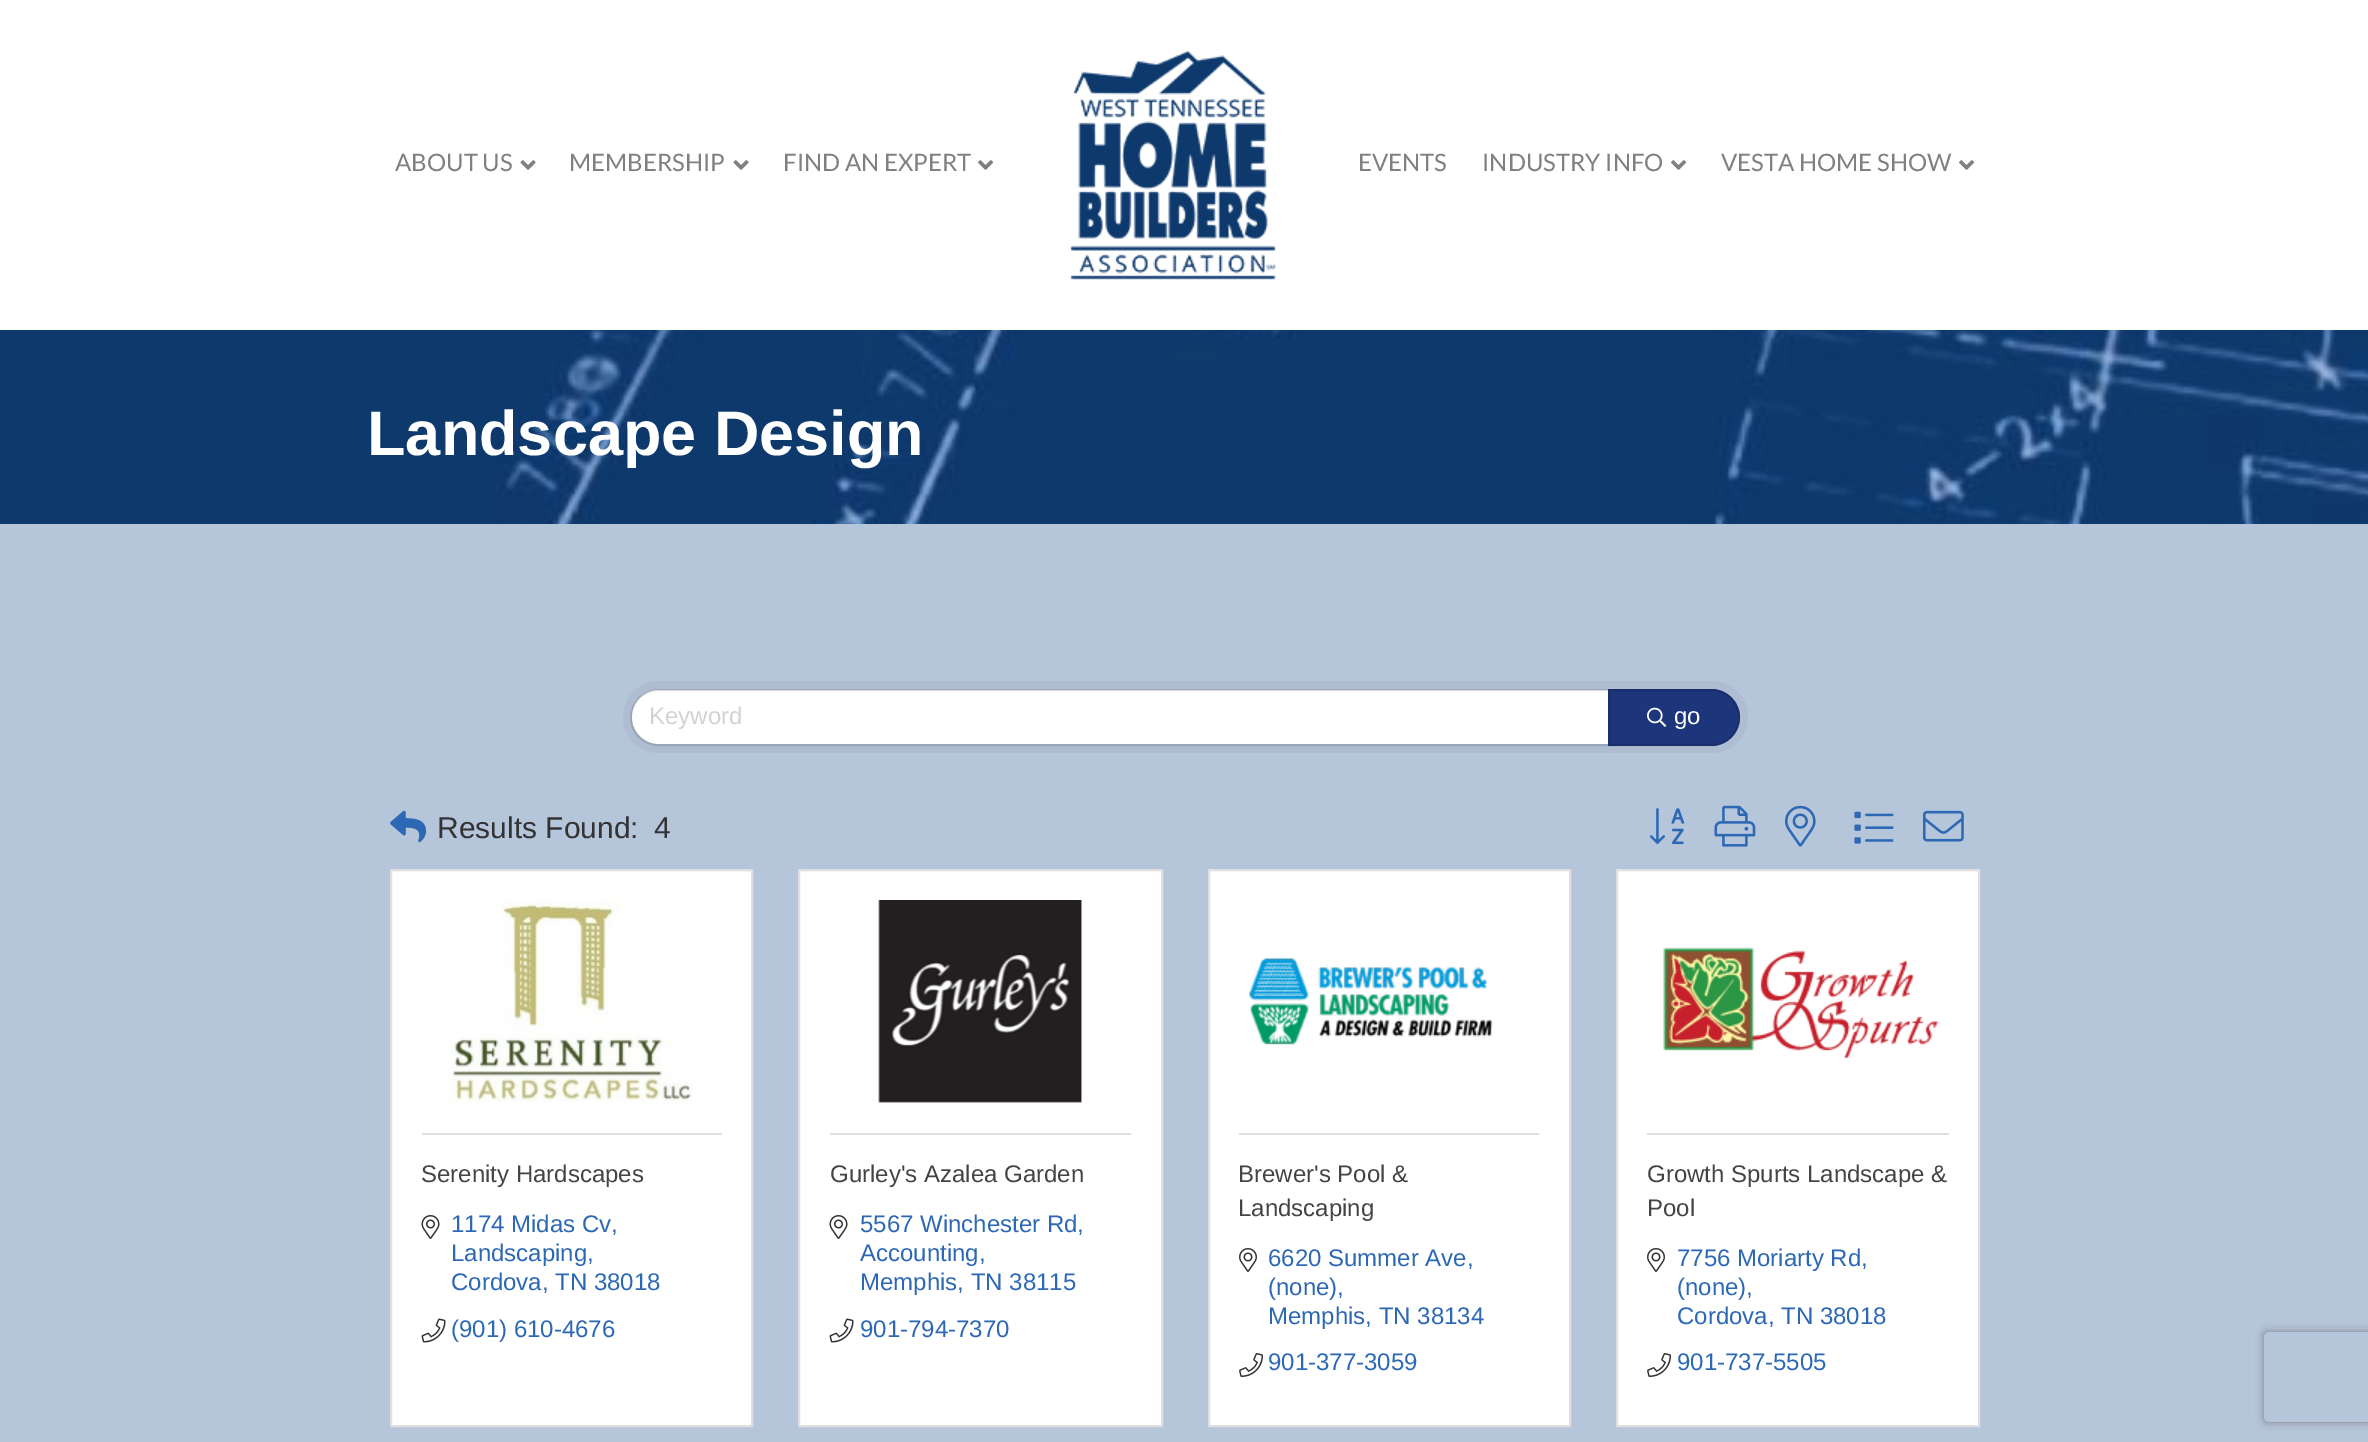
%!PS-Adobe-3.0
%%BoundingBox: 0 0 2368 1442
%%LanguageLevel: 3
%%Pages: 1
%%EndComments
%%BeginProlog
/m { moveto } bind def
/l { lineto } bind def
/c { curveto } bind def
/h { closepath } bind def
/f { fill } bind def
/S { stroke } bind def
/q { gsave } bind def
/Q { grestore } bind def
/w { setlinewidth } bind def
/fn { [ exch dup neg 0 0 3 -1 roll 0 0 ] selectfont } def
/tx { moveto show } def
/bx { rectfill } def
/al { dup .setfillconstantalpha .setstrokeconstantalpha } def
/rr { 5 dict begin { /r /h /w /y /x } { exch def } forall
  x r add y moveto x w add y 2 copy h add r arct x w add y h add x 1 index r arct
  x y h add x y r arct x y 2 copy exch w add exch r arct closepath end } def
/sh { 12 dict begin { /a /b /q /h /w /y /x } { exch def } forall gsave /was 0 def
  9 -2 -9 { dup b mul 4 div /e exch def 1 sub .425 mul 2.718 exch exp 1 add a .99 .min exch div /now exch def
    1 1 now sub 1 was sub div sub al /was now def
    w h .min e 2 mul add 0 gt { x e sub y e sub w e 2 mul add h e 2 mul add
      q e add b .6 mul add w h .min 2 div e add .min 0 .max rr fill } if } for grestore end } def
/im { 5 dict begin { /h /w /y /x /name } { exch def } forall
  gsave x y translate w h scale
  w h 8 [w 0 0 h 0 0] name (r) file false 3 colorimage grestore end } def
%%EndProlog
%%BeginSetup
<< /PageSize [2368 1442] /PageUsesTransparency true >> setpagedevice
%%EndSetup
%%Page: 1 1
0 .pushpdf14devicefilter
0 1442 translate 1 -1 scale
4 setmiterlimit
1 setgray
0 0 2368 1442 bx
/Lato-Regular 24 fn
0.502 setgray
(ABOUT US) 395 171 tx
(image0.raw) 520 160 16 10 im
(MEMBERSHIP) 569 171 tx
(image0.raw) 733 160 16 10 im
(FIND AN EXPERT) 783 171 tx
(image1.raw) 978 160 15 10 im
(image2.raw) 1070 50 206 230 im
(EVENTS) 1358 171 tx
(INDUSTRY INFO) 1482 171 tx
(image1.raw) 1671 160 15 10 im
(VESTA HOME SHOW) 1721 171 tx
(image1.raw) 1959 160 15 10 im
0.71 0.773 0.855 setrgbcolor
0 524 2368 918 bx
0.051 0.224 0.427 setrgbcolor
0 330 495 194 bx
(image3.raw) 495 330 1873 194 im
/LiberationSans-Bold 63 fn
1 setgray
(Landscape Design) 367 455 tx
0.682 0.741 0.82 setrgbcolor
623 681 1125 72 36 rr f
1 setgray
659 690 m 1608 690 l 1608 744 l 659 744 l 644 744 632 732 632 717 c 632 702 644 690 659 690 c h f
0.12 al
0 setgray
2 w
658.5 690 m 1609 690 l 1609 745 l 658.5 745 l 643.5 745 631 732.5 631 717.5 c 631 702.5 643.5 690 658.5 690 c h S
/LiberationSans-Regular 24 fn
1 al
0.824 setgray
(Keyword) 649 724 tx
0.114 0.212 0.482 setrgbcolor
1608 689 m 1711.5 689 l 1727 689 1740 702 1740 717.5 c 1740 733 1727 746 1711.5 746 c 1608 746 l h f
0.12 al
0 setgray
1609 690 m 1711.5 690 l 1726.5 690 1739 702.5 1739 717.5 c 1739 732.5 1726.5 745 1711.5 745 c 1609 745 l h S
1 al
(image4.raw) 1647 707 20 20 im
1 setgray
(go) 1674 724 tx
(image5.raw) 390 810 37 33 im
/LiberationSans-Regular 30 fn
0.2 setgray
(Results Found:) 437 838 tx
(4) 654 838 tx
(image6.raw) 1649 808 36 37 im
(image7.raw) 1714 805 42 42 im
(image8.raw) 1785 805 31 42 im
(image9.raw) 1854 811 40 33 im
(image10.raw) 1923 810 41 32 im
1 setgray
391 870 m 752 870 l 752 1426 l 391 1426 l h q f Q
0.875 setgray
S
(image11.raw) 441 900 252 203 im
422 1133 300 2 bx
/LiberationSans-Regular 24 fn
0.267 setgray
(Serenity Hardscapes) 421 1182 tx
(image12.raw) 421 1215 19 24 im
0.176 0.408 0.706 setrgbcolor
(1174 Midas Cv,) 451 1232 tx
(Landscaping,) 451 1261 tx
(Cordova, TN 38018) 451 1290 tx
(image13.raw) 421 1318 25 25 im
(\(901\) 610-4676) 451 1337 tx
1 setgray
799 870 m 1162 870 l 1162 1426 l 799 1426 l h q f Q
0.875 setgray
S
(image14.raw) 878 900 204 203 im
830 1133 301 2 bx
0.267 setgray
(Gurley's Azalea Garden) 830 1182 tx
(image12.raw) 829 1215 19 24 im
0.176 0.408 0.706 setrgbcolor
(5567 Winchester Rd,) 860 1232 tx
(Accounting,) 860 1261 tx
(Memphis, TN 38115) 860 1290 tx
(image13.raw) 829 1318 25 25 im
(901-794-7370) 860 1337 tx
1 setgray
1209 870 m 1570 870 l 1570 1426 l 1209 1426 l h q f Q
0.875 setgray
S
(image15.raw) 1249 958 244 87 im
1239 1133 300 2 bx
0.267 setgray
(Brewer's Pool &) 1238 1182 tx
(Landscaping) 1238 1216 tx
(image16.raw) 1239 1248 18 24 im
0.176 0.408 0.706 setrgbcolor
(6620 Summer Ave,) 1268 1266 tx
(\(none\),) 1268 1295 tx
(Memphis, TN 38134) 1268 1324 tx
(image17.raw) 1239 1353 25 24 im
(901-377-3059) 1268 1370 tx
1 setgray
1617 870 m 1979 870 l 1979 1426 l 1617 1426 l h q f Q
0.875 setgray
S
(image18.raw) 1663 947 276 113 im
1647 1133 302 2 bx
0.267 setgray
(Growth Spurts Landscape &) 1647 1182 tx
(Pool) 1647 1216 tx
(image16.raw) 1647 1248 18 24 im
0.176 0.408 0.706 setrgbcolor
(7756 Moriarty Rd,) 1677 1266 tx
(\(none\),) 1677 1295 tx
(Cordova, TN 38018) 1677 1324 tx
(image17.raw) 1647 1353 25 24 im
(901-737-5505) 1677 1370 tx
q
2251 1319 m 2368 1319 l 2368 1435 l 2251 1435 l h 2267 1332 m 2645 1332 l 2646.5 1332 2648 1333.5 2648 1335 c 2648 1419 l 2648 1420.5 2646.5 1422 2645 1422 c 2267 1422 l 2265.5 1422 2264 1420.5 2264 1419 c 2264 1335 l 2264 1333.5 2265.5 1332 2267 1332 c h eoclip newpath
0.502 setgray
2264 1332 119 90 3 4 1 sh
Q
.poppdf14devicefilter showpage
%%EOF
